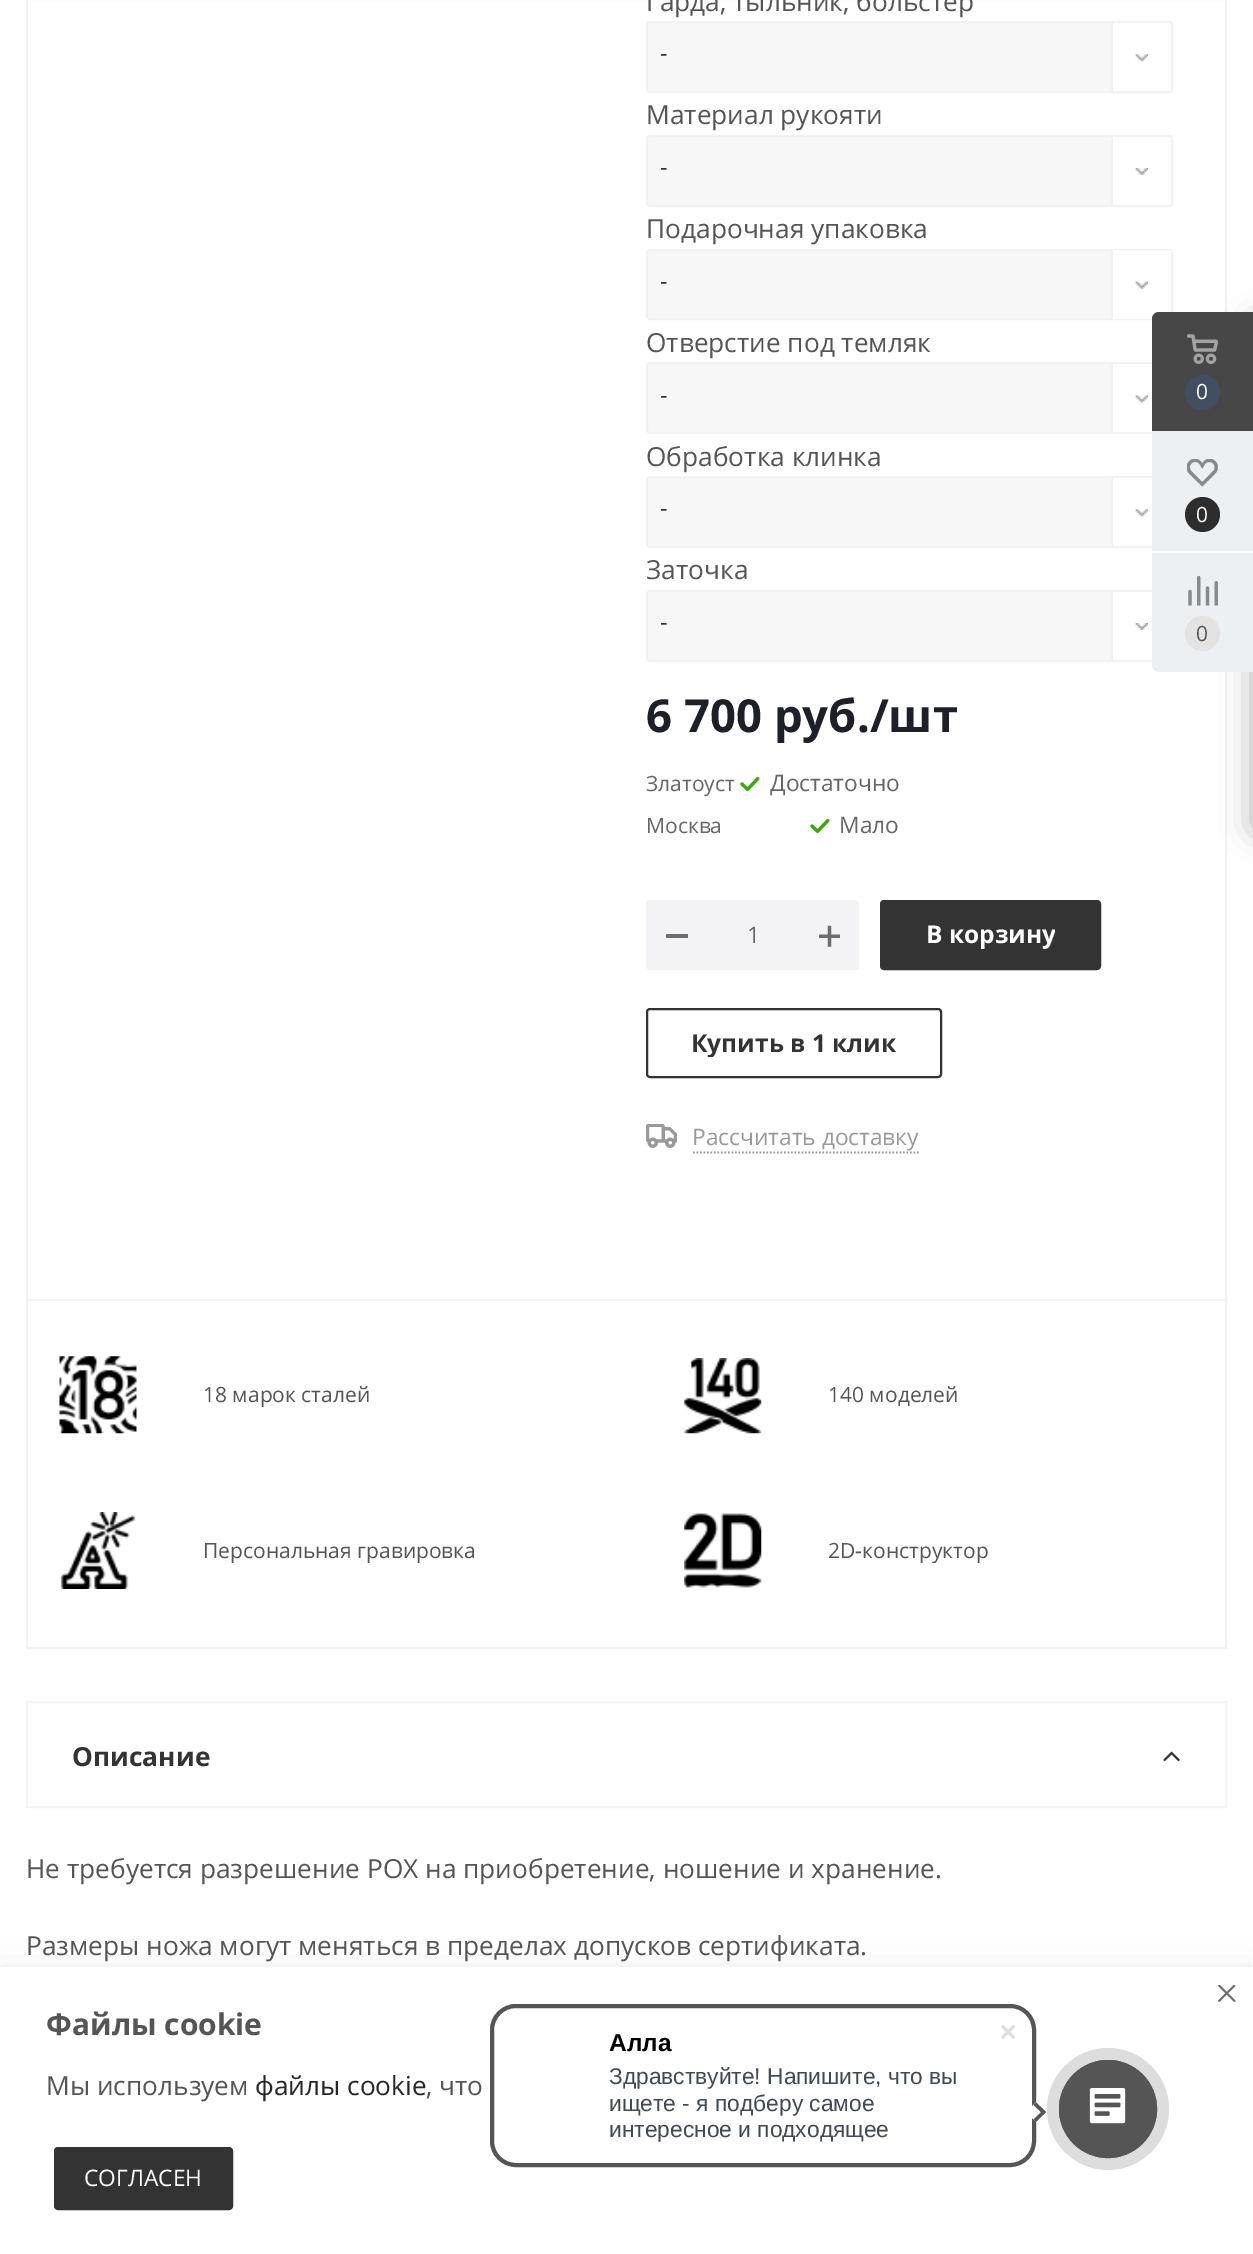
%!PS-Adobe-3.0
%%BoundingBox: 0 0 1253 2254
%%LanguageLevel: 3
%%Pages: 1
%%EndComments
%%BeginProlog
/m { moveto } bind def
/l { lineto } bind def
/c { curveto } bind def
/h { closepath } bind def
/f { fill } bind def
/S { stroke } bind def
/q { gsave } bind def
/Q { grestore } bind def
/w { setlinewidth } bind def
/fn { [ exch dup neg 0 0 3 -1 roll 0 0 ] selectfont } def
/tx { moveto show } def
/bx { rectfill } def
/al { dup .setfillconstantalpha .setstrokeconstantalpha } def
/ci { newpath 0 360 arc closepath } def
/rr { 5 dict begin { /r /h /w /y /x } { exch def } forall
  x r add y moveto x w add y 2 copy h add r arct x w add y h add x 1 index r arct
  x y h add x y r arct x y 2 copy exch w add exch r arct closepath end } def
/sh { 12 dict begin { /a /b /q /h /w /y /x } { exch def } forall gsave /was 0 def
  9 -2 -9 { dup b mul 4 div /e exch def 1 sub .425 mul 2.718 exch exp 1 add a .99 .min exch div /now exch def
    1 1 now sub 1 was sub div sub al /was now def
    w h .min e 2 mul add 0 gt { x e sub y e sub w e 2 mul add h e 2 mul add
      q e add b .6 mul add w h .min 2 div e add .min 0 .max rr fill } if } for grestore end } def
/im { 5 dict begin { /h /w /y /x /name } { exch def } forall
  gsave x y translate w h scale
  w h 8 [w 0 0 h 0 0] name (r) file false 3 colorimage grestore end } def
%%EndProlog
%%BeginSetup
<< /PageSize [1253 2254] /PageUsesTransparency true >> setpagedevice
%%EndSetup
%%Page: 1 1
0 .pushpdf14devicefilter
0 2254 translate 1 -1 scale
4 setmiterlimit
1 setgray
0 0 1253 2254 bx
0.949 setgray
2 w
27 -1 1199 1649 rectstroke
/OpenSans-Regular 26.25 fn
0.333 setgray
(Гарда, тыльник, больстер) 646 11 tx
0.969 setgray
647 22 525 70 3 rr q f Q
0.949 setgray
S
/OpenSans-Regular 22.75 fn
0.2 setgray
(-) 660 61 tx
1 setgray
1111 23 m 1169 23 l 1170 23 1171 24 1171 25 c 1171 89 l 1171 90 1170 91 1169 91 c 1111 91 l h f
0.949 setgray
1111 23 2 68 bx
(image0.raw) 1135 54 13 8 im
/OpenSans-Regular 26.25 fn
0.333 setgray
(Материал рукояти) 646 124 tx
0.969 setgray
647 136 525 70 3 rr q f Q
0.949 setgray
S
/OpenSans-Regular 22.75 fn
0.2 setgray
(-) 660 175 tx
1 setgray
1111 137 m 1169 137 l 1170 137 1171 138 1171 139 c 1171 203 l 1171 204 1170 205 1169 205 c 1111 205 l h f
0.949 setgray
1111 137 2 68 bx
(image1.raw) 1135 168 13 7 im
/OpenSans-Regular 26.25 fn
0.333 setgray
(Подарочная упаковка) 646 238 tx
0.969 setgray
647 250 525 69 3 rr q f Q
0.949 setgray
S
/OpenSans-Regular 22.75 fn
0.2 setgray
(-) 660 289 tx
1 setgray
1111 250 m 1169 250 l 1170 250 1171 251 1171 252 c 1171 317 l 1171 318 1170 319 1169 319 c 1111 319 l h f
0.949 setgray
1111 250 2 69 bx
(image2.raw) 1135 281 13 8 im
/OpenSans-Regular 26.25 fn
0.333 setgray
(Отверстие под темляк) 646 352 tx
0.969 setgray
647 363 525 70 3 rr q f Q
0.949 setgray
S
/OpenSans-Regular 22.75 fn
0.2 setgray
(-) 660 403 tx
1 setgray
1113 364 39 68 bx
0.949 setgray
1111 364 2 68 bx
(image3.raw) 1135 395 13 8 im
/OpenSans-Regular 26.25 fn
0.333 setgray
(Обработка клинка) 646 466 tx
0.969 setgray
647 477 525 70 3 rr q f Q
0.949 setgray
S
/OpenSans-Regular 22.75 fn
0.2 setgray
(-) 660 516 tx
1 setgray
1113 478 39 68 bx
0.949 setgray
1111 478 2 68 bx
(image0.raw) 1135 509 13 8 im
/OpenSans-Regular 26.25 fn
0.333 setgray
(Заточка) 646 579 tx
0.969 setgray
647 591 525 70 3 rr q f Q
0.949 setgray
S
/OpenSans-Regular 22.75 fn
0.2 setgray
(-) 660 630 tx
1 setgray
1113 592 39 68 bx
0.949 setgray
1111 592 2 68 bx
(image1.raw) 1135 623 13 7 im
/OpenSans-Bold 45.5 fn
0.114 0.125 0.161 setrgbcolor
(6 700 руб./шт) 646 732 tx
/OpenSans-Regular 21 fn
0.4 setgray
(Златоуст) 646 791 tx
(image4.raw) 740 776 20 15 im
/OpenSans-Regular 22.75 fn
(Достаточно) 770 791 tx
/OpenSans-Regular 21 fn
(Москва) 646 833 tx
(image4.raw) 810 818 20 15 im
/OpenSans-Regular 22.75 fn
(Мало) 839 833 tx
0.953 0.953 0.961 setrgbcolor
647 901 211 68 3 rr q f Q
S
0.427 setgray
666 934 22 4 bx
0.4 setgray
(1) 747 943 tx
(image5.raw) 819 925 21 22 im
0.2 setgray
881 901 219 68 3 rr q f Q
S
q
926 921 129 28 rectclip
/OpenSans-Bold 24.5 fn
1 setgray
(В корзину) 926 943 tx
Q
647 1009 294 68 3 rr S
q
691 1029 205 28 rectclip
/OpenSans-Bold 24.5 fn
(Купить в 1 клик) 691 1052 tx
Q
(image6.raw) 646 1124 31 24 im
0.6 setgray
(Рассчитать доставку) 692 1145 tx
1.8 w
[1.75 1.75] 0 setdash
693 1152.5 m 919 1152.5 l S
0.949 setgray
28 1299 1197 2 bx
(image7.raw) 59 1356 78 78 im
/OpenSans-Regular 21 fn
0.333 setgray
(18 марок сталей) 203 1402 tx
(image8.raw) 684 1358 78 76 im
(140 моделей) 828 1402 tx
(image9.raw) 60 1512 76 77 im
(Персональная гравировка) 203 1558 tx
(image10.raw) 684 1512 78 76 im
(2D-конструктор) 828 1558 tx
0.961 setgray
2 w
[] 0 setdash
27 1702 1199 105 rectstroke
/OpenSans-Bold 26.25 fn
0.2 setgray
(Описание) 72 1766 tx
(image11.raw) 1163 1751 17 11 im
/OpenSans-Regular 26.25 fn
0.333 setgray
(Не требуется разрешение РОХ на приобретение, ношение и хранение.) 26 1878 tx
(Размеры ножа могут меняться в пределах допусков сертификата.) 26 1955 tx
0.173 setgray
1253 322 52 509 4 16 0.4 sh
0.929 0.941 0.953 setrgbcolor
1159 312 m 1253 312 l 1253 672 l 1159 672 l 1155 672 1152 669 1152 665 c 1152 319 l 1152 315 1155 312 1159 312 c h f
0.278 setgray
1159 312 m 1253 312 l 1253 431 l 1152 431 l 1152 319 l 1152 315 1155 312 1159 312 c h f
(image12.raw) 1187 334 31 30 im
0.259 0.31 0.376 setrgbcolor
1202.5 392.5 17.5 ci f
/OpenSans-Regular 21 fn
1 setgray
(0) 1196 399 tx
(image13.raw) 1187 459 31 28 im
0.18 0.176 0.176 setrgbcolor
1202.5 514.5 17.5 ci f
1 setgray
(0) 1196 522 tx
1152 551 101 2 bx
(image14.raw) 1188 576 30 30 im
0.89 setgray
1202.5 633.5 17.5 ci f
0.333 setgray
(0) 1196 641 tx
0 setgray
0 1976 1253 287 0 17.5 0.12 sh
1 setgray
0 1967 1253 287 bx
(image15.raw) 1218 1985 18 17 im
/OpenSans-Bold 30 fn
0.333 setgray
(Файлы cookie) 46 2035 tx
/OpenSans-Regular 26.25 fn
(Мы используем) 46 2095 tx
0.153 0.149 0.149 setrgbcolor
(файлы cookie) 255 2095 tx
0.333 setgray
(, что) 426 2095 tx
0.2 setgray
55 2148 177 61 3 rr q f Q
S
/OpenSans-Regular 22.75 fn
1 setgray
(СОГЛАСЕН) 84 2186 tx
0.333 setgray
4 w
492 2006 542 159 24 rr S
(image16.raw) 1001 2024 15 15 im
/LiberationSans-Bold 24.5 fn
0 setgray
(Алла) 609 2051 tx
/LiberationSans-Regular 22.75 fn
0.259 0.286 0.337 setrgbcolor
(Здравствуйте! Напишите, что вы) 609 2084 tx
(ищете - я подберу самое) 609 2111 tx
(интересное и подходящее) 609 2137 tx
1 setgray
1026 2112 m 1036 2102.5 l 1046 2112 l 1036 2122 l h f
0.333 setgray
1033.5 2105 m 1036 2102.5 l 1046 2112 l 1043.5 2114.5 l h f
1033.5 2119.5 m 1043.5 2110 l 1046 2112 l 1036 2122 l h f
0.867 setgray
1108 2109 61 ci f
0.333 setgray
1 w
1108 2109 48.5 ci S
1108 2109 49 ci f
(image17.raw) 1089 2088 37 36 im
.poppdf14devicefilter showpage
%%EOF
